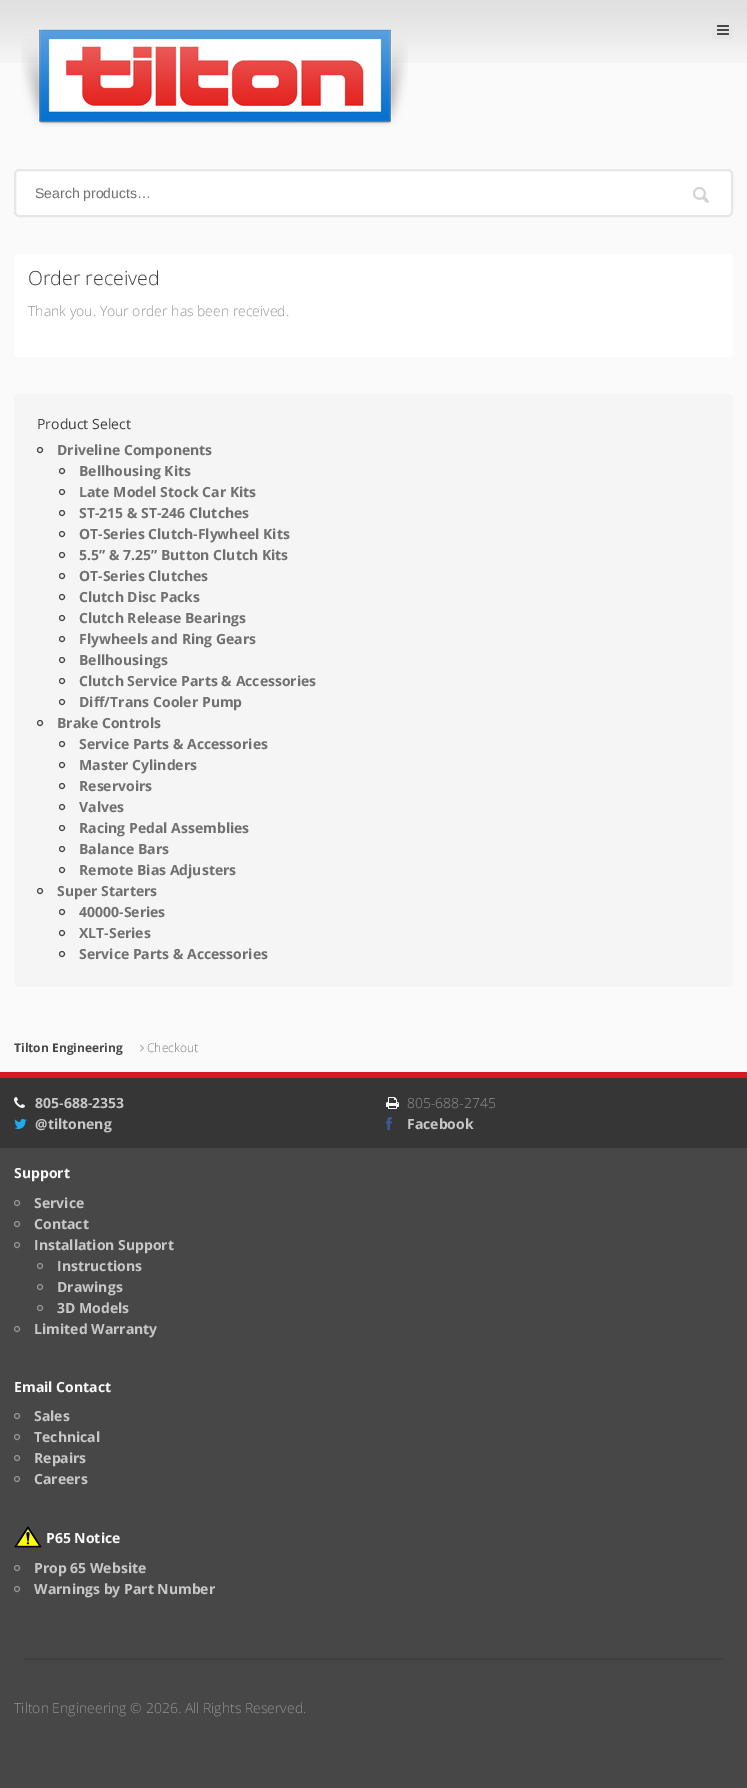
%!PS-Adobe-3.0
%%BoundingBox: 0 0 747 1788
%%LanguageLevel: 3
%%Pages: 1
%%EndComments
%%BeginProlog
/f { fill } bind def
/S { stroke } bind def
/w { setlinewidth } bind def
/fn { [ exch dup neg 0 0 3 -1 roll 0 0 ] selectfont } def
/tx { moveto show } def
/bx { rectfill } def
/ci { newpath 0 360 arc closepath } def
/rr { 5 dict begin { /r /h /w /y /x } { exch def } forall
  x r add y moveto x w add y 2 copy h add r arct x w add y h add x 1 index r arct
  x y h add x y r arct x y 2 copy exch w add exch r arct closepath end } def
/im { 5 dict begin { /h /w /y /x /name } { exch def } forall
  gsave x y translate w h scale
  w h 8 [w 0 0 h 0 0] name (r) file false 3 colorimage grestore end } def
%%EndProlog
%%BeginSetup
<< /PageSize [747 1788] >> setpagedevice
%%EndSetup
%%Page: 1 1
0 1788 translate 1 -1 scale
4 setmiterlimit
0.98 setgray
0 0 747 1788 bx
(image0.raw) 0 0 747 63 im
(image1.raw) 21 29 387 98 im
0.902 setgray
712 18 21 21 2 rr f
(image2.raw) 717 25 12 10 im
1 setgray
14 169 719 48 bx
0.906 setgray
2 w
15 170 717 46 4 rr S
/LiberationSans-Regular 14 fn
0.439 setgray
(Search products…) 35 198 tx
(image3.raw) 693 187 16 16 im
1 setgray
14 254 719 103 5 rr f
/OpenSans-Light 19.5 fn
0.243 setgray
(Order received) 28 285 tx
/OpenSans-Light 14 fn
0.58 setgray
(Thank you. Your order has been received.) 28 316 tx
0.961 setgray
14 394 719 593 5 rr f
/OpenSans-Regular 14 fn
0.243 setgray
(Product Select) 37 429 tx
0.278 setgray
1 w
40 450 2.5 ci S
/OpenSans-Bold 14 fn
0.439 setgray
(Driveline Components) 57 455 tx
0.278 setgray
62 471 2.5 ci S
0.439 setgray
(Bellhousing Kits) 79 476 tx
0.278 setgray
62 492 2.5 ci S
0.439 setgray
(Late Model Stock Car Kits) 79 497 tx
0.278 setgray
62 513 2.5 ci S
0.439 setgray
(ST-215 & ST-246 Clutches) 79 518 tx
0.278 setgray
62 534 2.5 ci S
0.439 setgray
(OT-Series Clutch-Flywheel Kits) 79 539 tx
0.278 setgray
62 555 2.5 ci S
0.439 setgray
(5.5” & 7.25” Button Clutch Kits) 79 560 tx
0.278 setgray
62 576 2.5 ci S
0.439 setgray
(OT-Series Clutches) 79 581 tx
0.278 setgray
62 597 2.5 ci S
0.439 setgray
(Clutch Disc Packs) 79 602 tx
0.278 setgray
62 618 2.5 ci S
0.439 setgray
(Clutch Release Bearings) 79 623 tx
0.278 setgray
62 639 2.5 ci S
0.439 setgray
(Flywheels and Ring Gears) 79 644 tx
0.278 setgray
62 660 2.5 ci S
0.439 setgray
(Bellhousings) 79 665 tx
0.278 setgray
62 681 2.5 ci S
0.439 setgray
(Clutch Service Parts & Accessories) 79 686 tx
0.278 setgray
62 702 2.5 ci S
0.439 setgray
(Diff/Trans Cooler Pump) 79 707 tx
0.278 setgray
40 723 2.5 ci S
0.439 setgray
(Brake Controls) 57 728 tx
0.278 setgray
62 744 2.5 ci S
0.439 setgray
(Service Parts & Accessories) 79 749 tx
0.278 setgray
62 765 2.5 ci S
0.439 setgray
(Master Cylinders) 79 770 tx
0.278 setgray
62 786 2.5 ci S
0.439 setgray
(Reservoirs) 79 791 tx
0.278 setgray
62 807 2.5 ci S
0.439 setgray
(Valves) 79 812 tx
0.278 setgray
62 828 2.5 ci S
0.439 setgray
(Racing Pedal Assemblies) 79 833 tx
0.278 setgray
62 849 2.5 ci S
0.439 setgray
(Balance Bars) 79 854 tx
0.278 setgray
62 870 2.5 ci S
0.439 setgray
(Remote Bias Adjusters) 79 875 tx
0.278 setgray
40 891 2.5 ci S
0.439 setgray
(Super Starters) 57 896 tx
0.278 setgray
62 912 2.5 ci S
0.439 setgray
(40000-Series) 79 917 tx
0.278 setgray
62 933 2.5 ci S
0.439 setgray
(XLT-Series) 79 938 tx
0.278 setgray
62 954 2.5 ci S
0.439 setgray
(Service Parts & Accessories) 79 959 tx
/OpenSans-Bold 12 fn
0.278 setgray
(Tilton Engineering) 14 1052 tx
(image4.raw) 140 1044 4 8 im
/OpenSans-Light 12 fn
0.478 setgray
(Checkout) 147 1052 tx
0.212 setgray
0 1078 747 70 bx
0.851 0.094 0.137 setrgbcolor
0 1072 747 6 bx
(image5.raw) 14 1097 11 11 im
/OpenSans-Bold 14 fn
0.78 setgray
(805-688-2353) 35 1108 tx
(image6.raw) 386 1097 13 12 im
/OpenSans-Light 14 fn
0.58 setgray
(805-688-2745) 407 1108 tx
(image7.raw) 14 1119 13 10 im
/OpenSans-Bold 14 fn
0.78 setgray
(@tiltoneng) 35 1129 tx
(image8.raw) 386 1117 6 13 im
(Facebook) 407 1129 tx
0.278 setgray
0 1148 747 640 bx
0.973 setgray
(Support) 14 1178 tx
0.58 setgray
17 1203 2.5 ci S
0.78 setgray
(Service) 34 1208 tx
0.58 setgray
17 1224 2.5 ci S
0.78 setgray
(Contact) 34 1229 tx
0.58 setgray
17 1245 2.5 ci S
0.78 setgray
(Installation Support) 34 1250 tx
0.58 setgray
40 1266 2.5 ci S
0.78 setgray
(Instructions) 57 1271 tx
0.58 setgray
40 1287 2.5 ci S
0.78 setgray
(Drawings) 57 1292 tx
0.58 setgray
40 1308 2.5 ci S
0.78 setgray
(3D Models) 57 1313 tx
0.58 setgray
17 1329 2.5 ci S
0.78 setgray
(Limited Warranty) 34 1334 tx
0.973 setgray
(Email Contact) 14 1392 tx
0.58 setgray
17 1416 2.5 ci S
0.78 setgray
(Sales) 34 1421 tx
0.58 setgray
17 1437 2.5 ci S
0.78 setgray
(Technical) 34 1442 tx
0.58 setgray
17 1458 2.5 ci S
0.78 setgray
(Repairs) 34 1463 tx
0.58 setgray
17 1479 2.5 ci S
0.78 setgray
(Careers) 34 1484 tx
(image9.raw) 14 1526 28 22 im
0.973 setgray
(P65 Notice) 46 1543 tx
0.58 setgray
17 1568 2.5 ci S
0.78 setgray
(Prop 65 Website) 34 1573 tx
0.58 setgray
17 1589 2.5 ci S
0.78 setgray
(Warnings by Part Number) 34 1594 tx
0.251 setgray
24 1658 699 2 bx
/OpenSans-Light 14 fn
0.58 setgray
(Tilton Engineering © 2026. All Rights Reserved.) 14 1713 tx
showpage
%%EOF
